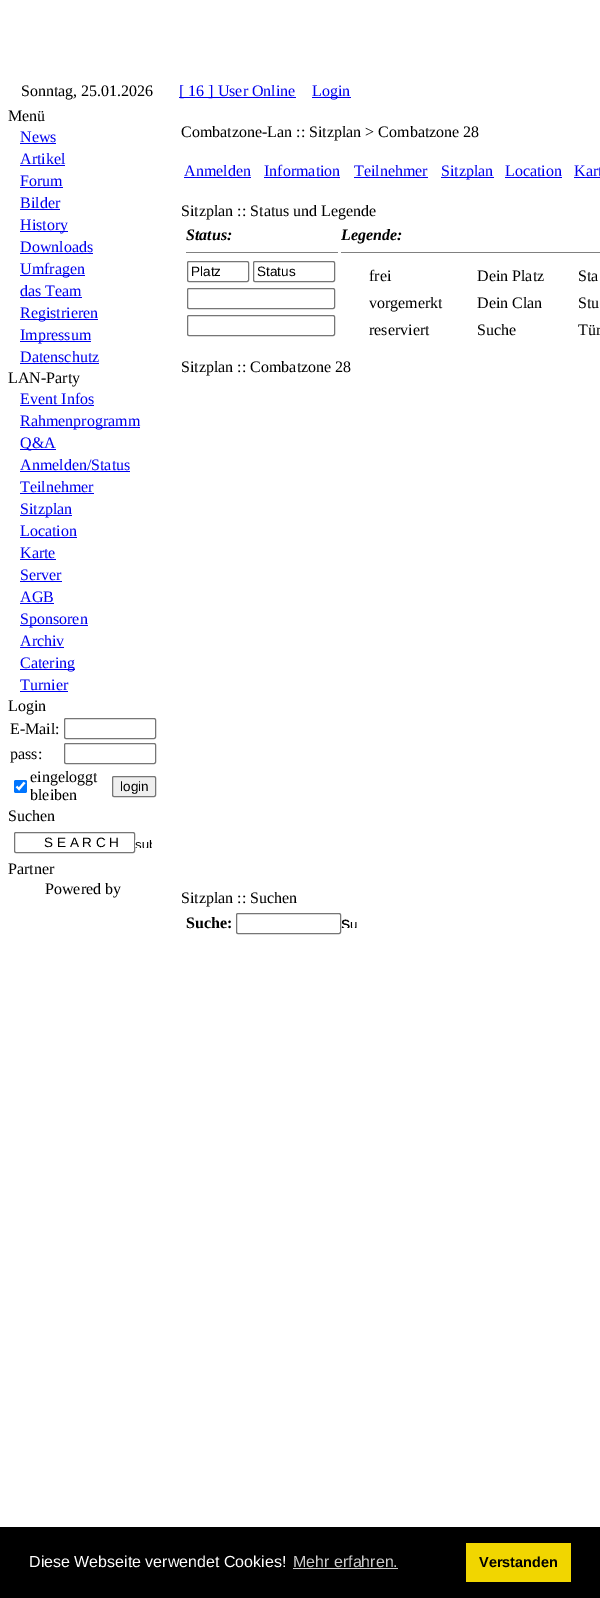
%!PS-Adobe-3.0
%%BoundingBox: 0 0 600 1598
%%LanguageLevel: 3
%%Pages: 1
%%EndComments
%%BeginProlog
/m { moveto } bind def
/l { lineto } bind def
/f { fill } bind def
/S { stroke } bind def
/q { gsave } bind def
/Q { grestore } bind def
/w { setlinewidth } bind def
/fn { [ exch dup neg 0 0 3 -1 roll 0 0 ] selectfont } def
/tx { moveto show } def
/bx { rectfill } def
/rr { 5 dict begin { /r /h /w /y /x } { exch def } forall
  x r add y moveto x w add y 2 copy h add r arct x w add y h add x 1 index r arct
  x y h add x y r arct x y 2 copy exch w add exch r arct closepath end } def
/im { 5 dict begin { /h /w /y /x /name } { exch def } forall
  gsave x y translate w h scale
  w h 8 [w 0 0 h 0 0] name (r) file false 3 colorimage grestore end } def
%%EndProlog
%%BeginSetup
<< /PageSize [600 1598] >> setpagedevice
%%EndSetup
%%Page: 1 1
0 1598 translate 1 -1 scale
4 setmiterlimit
1 setgray
0 0 600 1598 bx
/LiberationSerif-Regular 16 fn
0 setgray
(Sonntag, 25.01.2026) 21 96 tx
0 0 0.933 setrgbcolor
179 97 117 1 bx
([ 16 ] User Online) 179 96 tx
312 97 39 1 bx
(Login) 312 96 tx
0 setgray
(Menü) 8 121 tx
0 0 0.933 setrgbcolor
(News) 20 142 tx
20 143 36 1 bx
(Artikel) 20 164 tx
20 165 45 1 bx
(Forum) 20 186 tx
20 187 43 1 bx
(Bilder) 20 208 tx
20 209 40 1 bx
20 231 48 1 bx
(History) 20 230 tx
(Downloads) 20 252 tx
20 253 73 1 bx
20 275 65 1 bx
(Umfragen) 20 274 tx
(das Team) 20 296 tx
20 297 62 1 bx
20 319 78 1 bx
(Registrieren) 20 318 tx
20 341 71 1 bx
(Impressum) 20 340 tx
(Datenschutz) 20 362 tx
20 363 79 1 bx
0 setgray
(LAN-Party) 8 383 tx
0 0 0.933 setrgbcolor
(Event Infos) 20 404 tx
20 405 74 1 bx
20 427 120 1 bx
(Rahmenprogramm) 20 426 tx
20 449 36 1 bx
(Q&A) 20 448 tx
(Anmelden/Status) 20 470 tx
20 471 110 1 bx
(Teilnehmer) 20 492 tx
20 493 74 1 bx
20 515 52 1 bx
(Sitzplan) 20 514 tx
(Location) 20 536 tx
20 537 57 1 bx
(Karte) 20 558 tx
20 559 36 1 bx
(Server) 20 580 tx
20 581 42 1 bx
(AGB) 20 602 tx
20 603 34 1 bx
20 625 68 1 bx
(Sponsoren) 20 624 tx
(Archiv) 20 646 tx
20 647 44 1 bx
20 669 55 1 bx
(Catering) 20 668 tx
(Turnier) 20 690 tx
20 691 48 1 bx
0 setgray
(Login) 8 711 tx
(E-Mail:) 10 734 tx
0.463 setgray
64.5 718.5 91 20 1.5 rr S
0 setgray
(pass:) 10 759 tx
0.463 setgray
64.5 743.5 91 20 1.5 rr S
0 0.459 1 setrgbcolor
14 780 13 13 2 rr f
1 setgray
2.1 w
16.5 786.5 m 19 789 l 24.5 782.5 l S
0 setgray
(eingeloggt) 30 782 tx
(bleiben) 30 800 tx
0.937 setgray
112.5 776.5 43 20 1.5 rr q f Q
0.463 setgray
1 w
S
/LiberationSans-Regular 13.5 fn
0 setgray
(login) 120 791 tx
/LiberationSerif-Regular 16 fn
(Suchen) 8 821 tx
0.463 setgray
14.5 832.5 120 20 1.5 rr S
/LiberationSans-Regular 13.5 fn
0 setgray
(S E A R C H) 44 847 tx
(image0.raw) 135 840 17 8 im
/LiberationSerif-Regular 16 fn
(Partner) 8 874 tx
(Powered by) 45 894 tx
(Combatzone-Lan :: Sitzplan > Combatzone 28) 181 137 tx
0 0 0.933 setrgbcolor
(Anmelden) 184 176 tx
184 177 67 1 bx
(Information) 264 176 tx
264 177 76 1 bx
(Teilnehmer) 354 176 tx
354 177 74 1 bx
441 177 53 1 bx
(Sitzplan) 441 176 tx
(Location) 505 176 tx
505 177 57 1 bx
(Kart) 574 176 tx
574 177 26 1 bx
0 setgray
(Sitzplan :: Status und Legende) 181 216 tx
/LiberationSerif-BoldItalic 16 fn
(Status:) 186 240 tx
0.502 setgray
186 252 152 1 bx
0.463 setgray
187.5 261.5 61 20 1.5 rr S
/LiberationSans-Regular 13.5 fn
0 setgray
(Platz) 191 276 tx
0.463 setgray
253.5 261.5 81 20 1.5 rr S
0 setgray
(Status) 257 276 tx
0.463 setgray
187.5 288.5 147 20 1.5 rr S
187.5 315.5 147 20 1.5 rr S
/LiberationSerif-BoldItalic 16 fn
0 setgray
(Legende:) 341 240 tx
0.502 setgray
341 252 259 1 bx
/LiberationSerif-Regular 16 fn
0 setgray
(frei) 369 281 tx
(vorgemerkt) 369 308 tx
(reserviert) 369 335 tx
(Dein Platz) 477 281 tx
(Dein Clan) 477 308 tx
(Suche) 477 335 tx
(Sta) 578 281 tx
(Stu) 578 308 tx
(Tür) 578 335 tx
(Sitzplan :: Combatzone 28) 181 372 tx
(Sitzplan :: Suchen) 181 903 tx
/LiberationSerif-Bold 16 fn
(Suche:) 186 928 tx
0.463 setgray
236.5 913.5 104 20 1.5 rr S
(image1.raw) 342 920 15 8 im
q
341 917 17 11 rectclip
/LiberationSans-Regular 13.5 fn
0 setgray
(S) 341 929 tx
Q
0 setgray
0 1527 600 71 bx
/LiberationSans-Regular 16 fn
1 setgray
(Diese Webseite verwendet Cookies!) 29 1567 tx
0.8 setgray
(Mehr erfahren.) 293 1567 tx
293 1568 105 1 bx
0.945 0.839 0 setrgbcolor
466 1543 105 39 bx
/LiberationSans-Bold 14.5 fn
0 setgray
(Verstanden) 479 1567 tx
showpage
%%EOF
